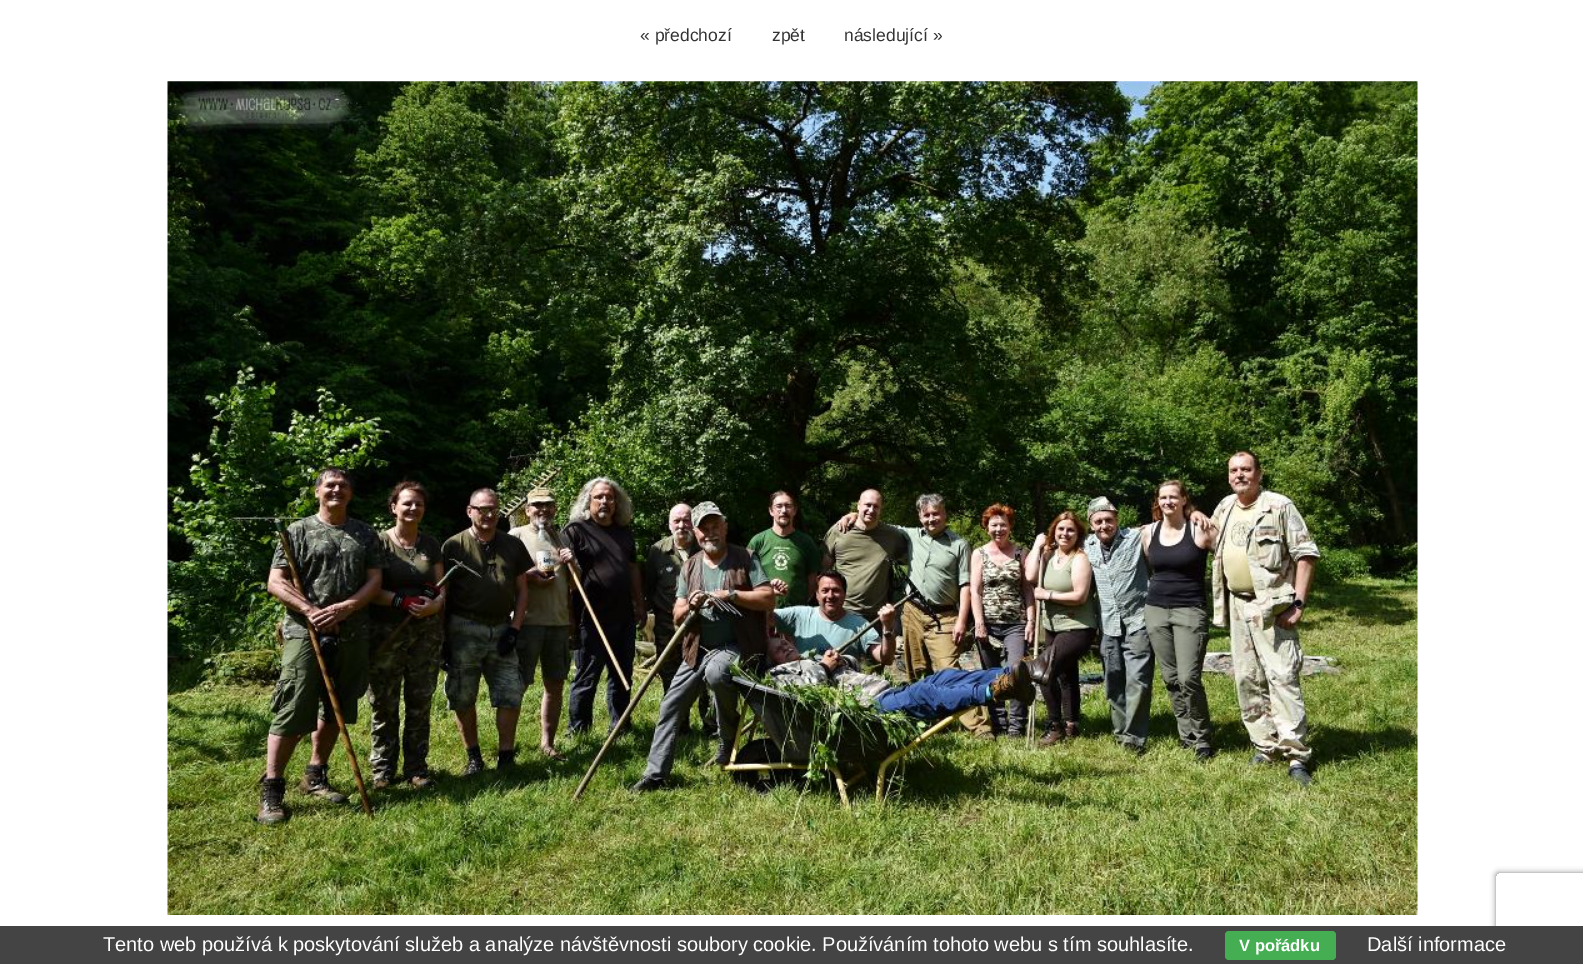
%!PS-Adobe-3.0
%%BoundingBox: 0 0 1583 964
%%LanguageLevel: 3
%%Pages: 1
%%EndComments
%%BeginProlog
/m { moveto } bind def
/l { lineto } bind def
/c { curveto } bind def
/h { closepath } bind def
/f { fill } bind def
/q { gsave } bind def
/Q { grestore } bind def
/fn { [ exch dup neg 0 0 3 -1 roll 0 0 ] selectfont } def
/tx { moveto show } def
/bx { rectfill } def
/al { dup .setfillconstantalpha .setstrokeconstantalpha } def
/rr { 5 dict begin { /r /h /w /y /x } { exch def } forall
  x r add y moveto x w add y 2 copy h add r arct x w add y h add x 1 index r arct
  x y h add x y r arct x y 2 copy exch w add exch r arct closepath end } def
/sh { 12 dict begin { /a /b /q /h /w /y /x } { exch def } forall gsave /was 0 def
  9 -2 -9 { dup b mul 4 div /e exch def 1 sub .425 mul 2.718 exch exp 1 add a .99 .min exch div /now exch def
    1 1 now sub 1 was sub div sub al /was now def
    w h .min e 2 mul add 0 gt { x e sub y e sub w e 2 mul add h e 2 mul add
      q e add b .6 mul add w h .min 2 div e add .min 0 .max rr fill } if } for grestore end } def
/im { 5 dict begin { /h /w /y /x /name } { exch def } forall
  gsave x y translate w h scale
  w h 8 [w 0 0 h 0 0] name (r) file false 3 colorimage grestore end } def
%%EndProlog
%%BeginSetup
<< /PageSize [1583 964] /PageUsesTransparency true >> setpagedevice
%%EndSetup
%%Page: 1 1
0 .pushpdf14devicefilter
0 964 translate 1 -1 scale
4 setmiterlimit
1 setgray
0 0 1583 964 bx
/LiberationSans-Regular 17.5 fn
0.2 setgray
(« předchozí) 640 41 tx
(zpět) 772 41 tx
(následující ») 844 41 tx
(image0.raw) 167 81 1251 834 im
q
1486 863 m 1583 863 l 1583 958 l 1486 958 l h 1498.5 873 m 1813.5 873 l 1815 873 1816 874 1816 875.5 c 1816 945.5 l 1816 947 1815 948 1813.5 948 c 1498.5 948 l 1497 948 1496 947 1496 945.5 c 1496 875.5 l 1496 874 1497 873 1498.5 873 c h eoclip newpath
0.502 setgray
1496 873 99 75 2.5 3 1 sh
Q
0.267 setgray
0 926 1583 38 bx
/LiberationSans-Regular 20 fn
1 setgray
(Tento web používá k poskytování služeb a analýze návštěvnosti soubory cookie. Používáním tohoto webu s tím souhlasíte.) 103 951 tx
0.271 0.682 0.322 setrgbcolor
1225 931 111 29 4 rr f
/LiberationSans-Bold 16.5 fn
1 setgray
(V pořádku) 1239 951 tx
/LiberationSans-Regular 20 fn
(Další informace) 1367 951 tx
.poppdf14devicefilter showpage
%%EOF
